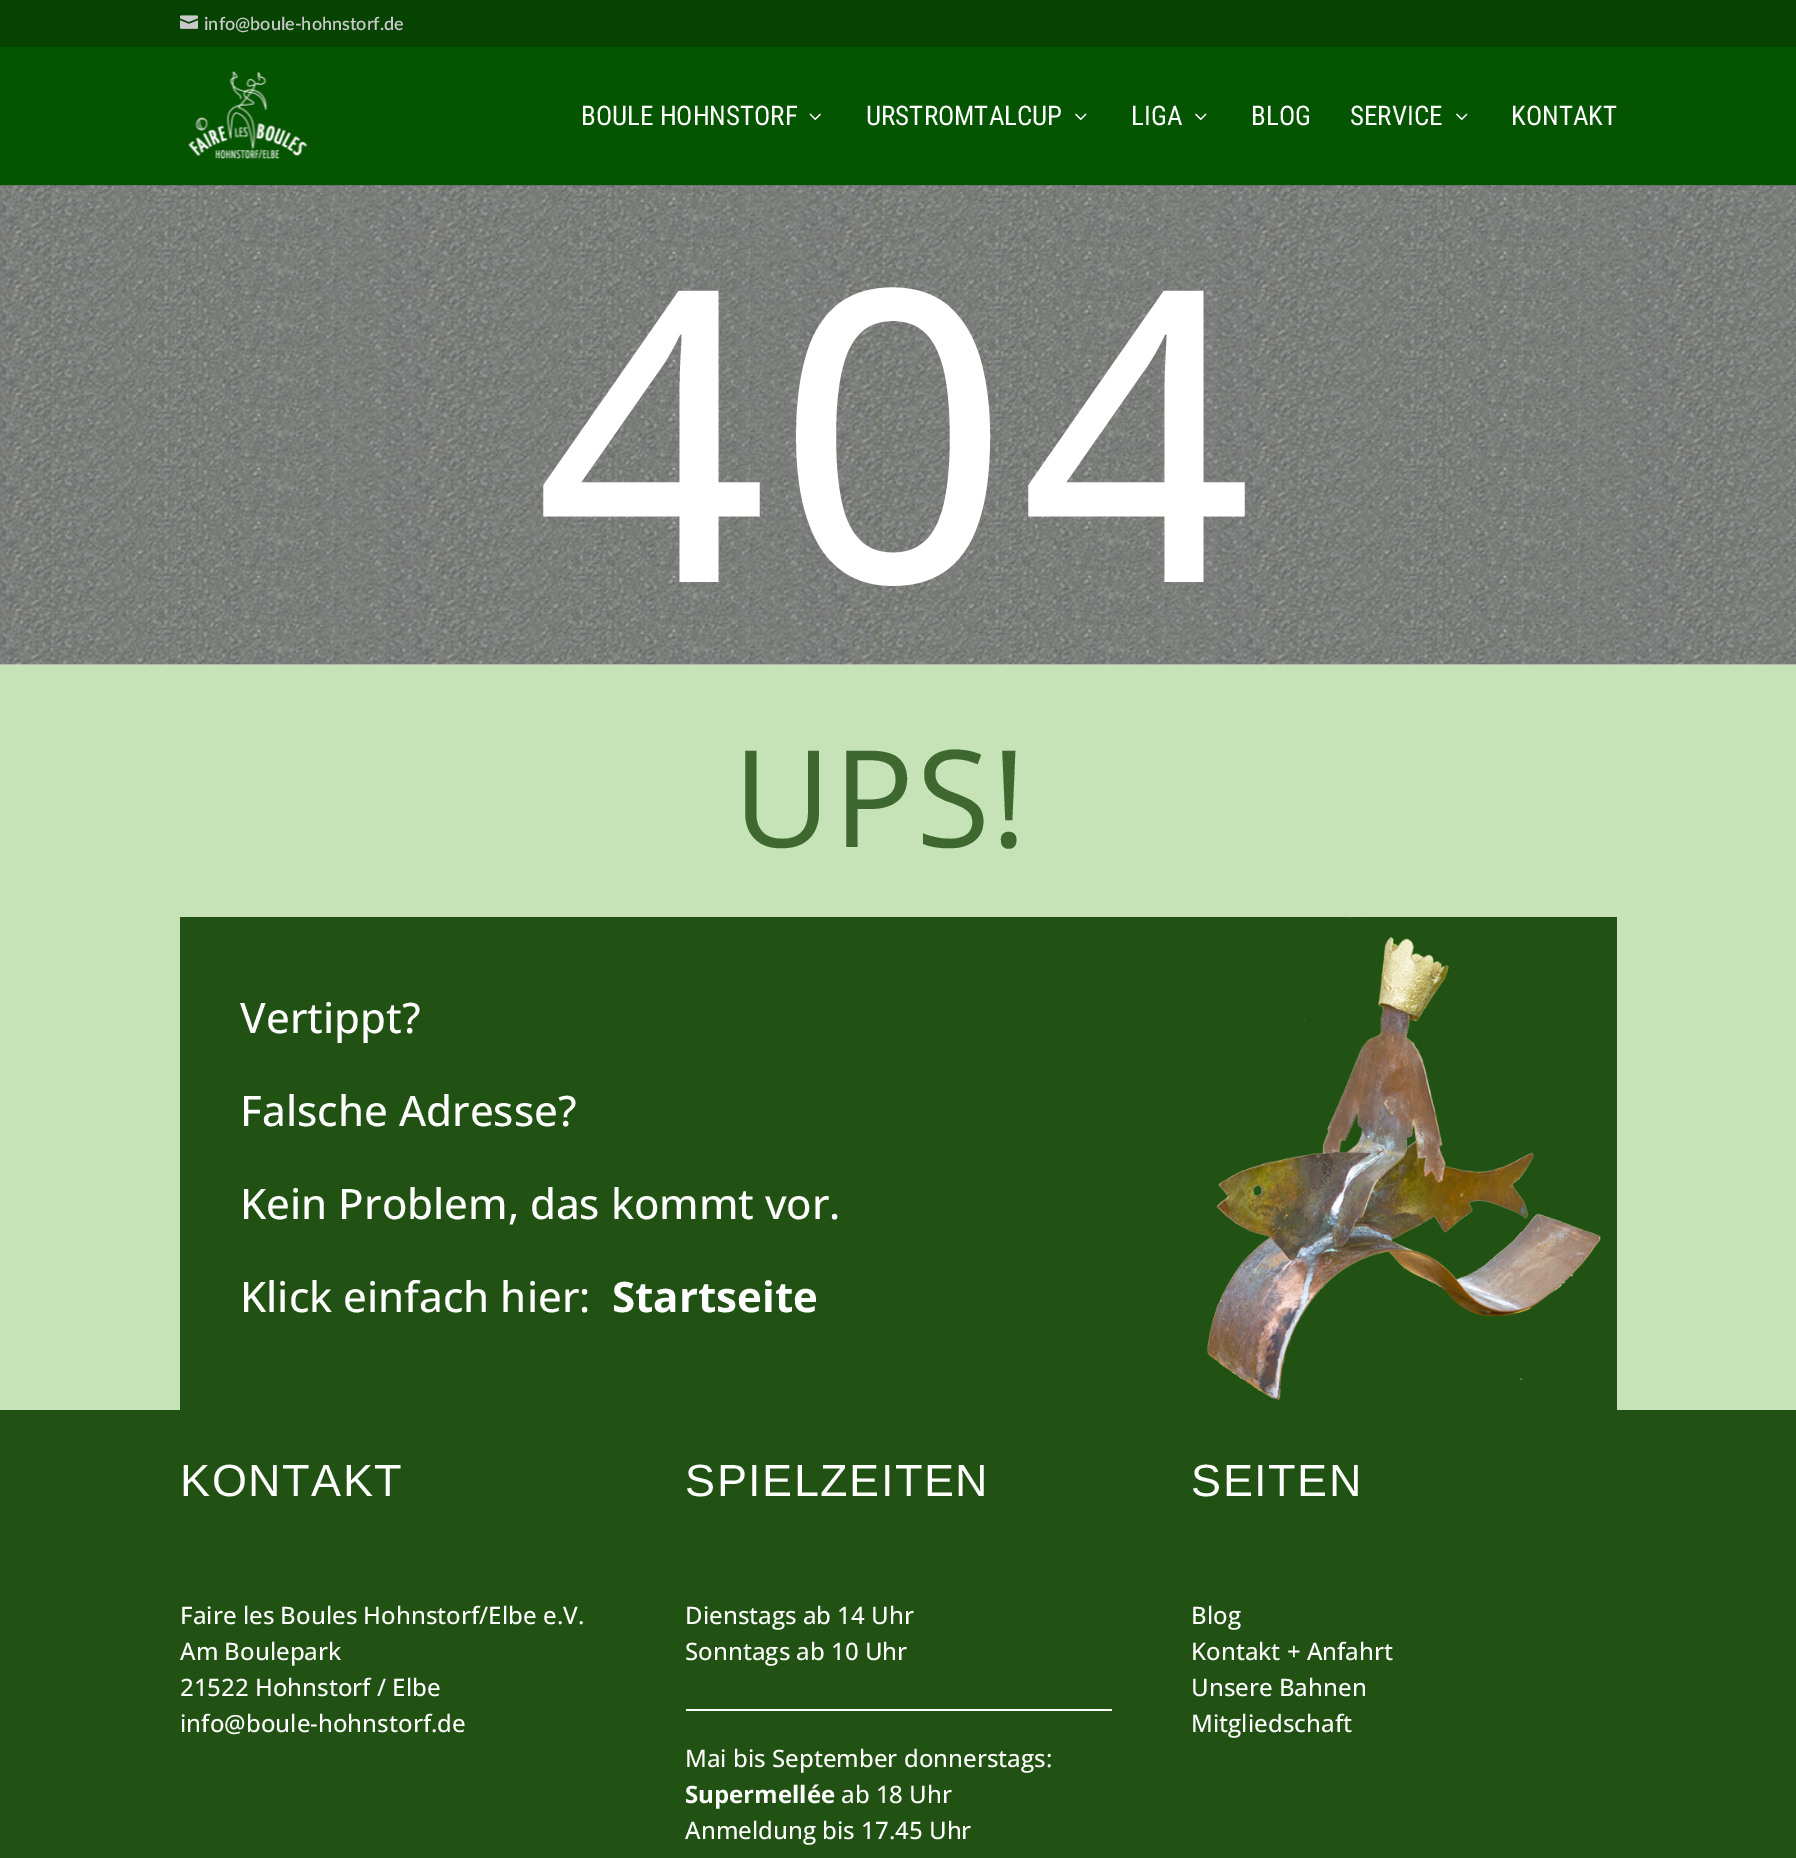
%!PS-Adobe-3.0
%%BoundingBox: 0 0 1796 1858
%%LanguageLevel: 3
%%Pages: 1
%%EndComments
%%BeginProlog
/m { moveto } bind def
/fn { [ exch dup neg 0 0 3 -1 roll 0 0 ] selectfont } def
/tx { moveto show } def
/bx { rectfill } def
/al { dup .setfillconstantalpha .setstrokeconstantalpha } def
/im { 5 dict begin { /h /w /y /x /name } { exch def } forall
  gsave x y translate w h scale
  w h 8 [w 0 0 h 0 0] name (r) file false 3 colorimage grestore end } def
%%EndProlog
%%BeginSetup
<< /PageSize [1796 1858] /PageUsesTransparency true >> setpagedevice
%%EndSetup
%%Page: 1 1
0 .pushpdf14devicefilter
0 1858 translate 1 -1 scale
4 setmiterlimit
0.914 0.941 0.906 setrgbcolor
0 0 1796 1858 bx
0.024 0.259 0 setrgbcolor
0 0 1796 47 bx
(image0.raw) 180 15 18 14 im
/Lato-SemiBold 18 fn
0.788 setgray
(info@boule-hohnstorf.de) 204 30 tx
(image4.raw) 0 185 1796 480 im
0.1 al
0 setgray
0 185 1796 1 bx
1 al
0.016 0.329 0 setrgbcolor
0 47 1796 138 bx
(image1.raw) 188 71 120 88 im
/RobotoCondensed-Regular 27 fn
1 setgray
(BOULE HOHNSTORF) 581 125 tx
(image2.raw) 809 113 12 7 im
(URSTROMTALCUP) 866 125 tx
(image3.raw) 1075 113 12 7 im
(LIGA) 1131 125 tx
(image3.raw) 1195 113 12 7 im
(BLOG) 1251 125 tx
(SERVICE) 1350 125 tx
(image3.raw) 1456 113 12 7 im
(KONTAKT) 1511 125 tx
/OpenSans-Medium 408 fn
535 582 m 9 0 (404) ashow
0.776 0.886 0.718 setrgbcolor
0 665 1796 745 bx
/OpenSans-Regular 135 fn
0.243 0.408 0.188 setrgbcolor
733 847 m 1.5 0 (UPS!) ashow
0.133 0.322 0.075 setrgbcolor
180 917 1437 493 bx
/OpenSans-Medium 42 fn
1 setgray
(Vertippt?) 240 1033 tx
(Falsche Adresse?) 240 1126 tx
(Kein Problem, das kommt vor.) 240 1219 tx
(Klick einfach hier:) 240 1312 tx
/OpenSans-Bold 42 fn
(Startseite) 612 1312 tx
(image5.raw) 1192 917 409 483 im
0.133 0.322 0.075 setrgbcolor
0 1410 1796 448 bx
/LiberationSans-Regular 45 fn
1 setgray
180 1496 m 1.5 0 (KONTAKT) ashow
/OpenSans-Medium 24 fn
(Faire les Boules Hohnstorf/Elbe e.V.) 180 1624 tx
(Am Boulepark) 180 1660 tx
(21522 Hohnstorf / Elbe) 180 1696 tx
(info@boule-hohnstorf.de) 180 1732 tx
/LiberationSans-Regular 45 fn
685 1496 m 1.5 0 (SPIELZEITEN) ashow
/OpenSans-Medium 24 fn
(Dienstags ab 14 Uhr) 685 1624 tx
(Sonntags ab 10 Uhr) 685 1660 tx
686 1709 426 2 bx
(Mai bis September donnerstags:) 685 1767 tx
/OpenSans-Bold 24 fn
(Supermellée) 685 1803 tx
/OpenSans-Medium 24 fn
(ab 18 Uhr) 841 1803 tx
(Anmeldung bis 17.45 Uhr) 685 1839 tx
/LiberationSans-Regular 45 fn
1191 1496 m 1.5 0 (SEITEN) ashow
/OpenSans-Medium 24 fn
(Blog) 1191 1624 tx
(Kontakt + Anfahrt) 1191 1660 tx
(Unsere Bahnen) 1191 1696 tx
(Mitgliedschaft) 1191 1732 tx
.poppdf14devicefilter showpage
%%EOF
